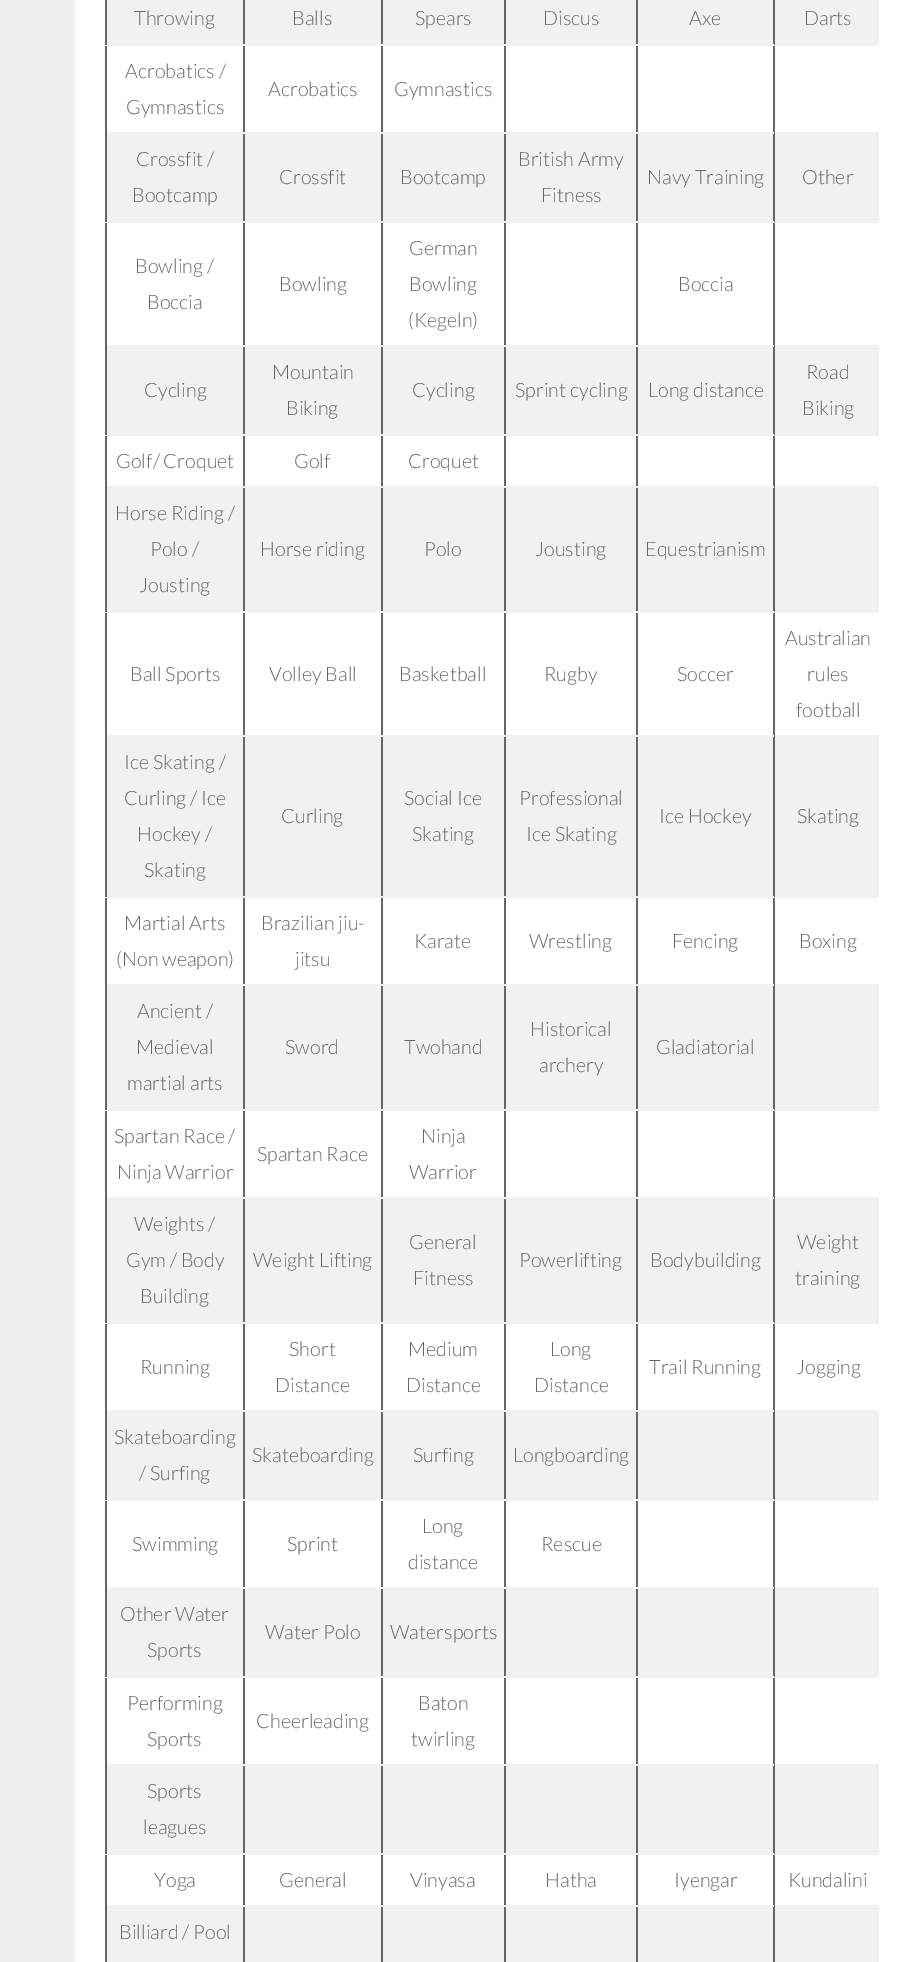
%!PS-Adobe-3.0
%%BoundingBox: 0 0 908 1962
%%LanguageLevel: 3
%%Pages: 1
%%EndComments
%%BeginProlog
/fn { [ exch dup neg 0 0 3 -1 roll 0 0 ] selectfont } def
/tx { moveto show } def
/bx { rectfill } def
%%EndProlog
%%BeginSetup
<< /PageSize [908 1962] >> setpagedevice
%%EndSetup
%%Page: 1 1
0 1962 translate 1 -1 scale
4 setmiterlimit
1 setgray
0 0 908 1962 bx
0.941 setgray
0 0 75 1962 bx
0.945 setgray
107 0 772 44 bx
107 134 772 87 bx
107 347 772 87 bx
107 488 772 123 bx
107 737 772 159 bx
107 986 772 123 bx
107 1199 772 123 bx
107 1412 772 87 bx
107 1589 772 87 bx
107 1766 772 87 bx
107 1907 772 55 bx
0.4 setgray
773 1905 2 57 bx
0.945 setgray
773 1905 106 2 bx
0.4 setgray
773 1853 2 54 bx
0.945 setgray
773 1853 106 2 bx
0.4 setgray
773 1764 2 90 bx
0.945 setgray
773 1764 106 2 bx
0.4 setgray
773 1676 2 90 bx
0.945 setgray
773 1676 106 2 bx
0.4 setgray
773 1587 2 90 bx
0.945 setgray
773 1587 106 2 bx
0.4 setgray
773 1499 2 90 bx
0.945 setgray
773 1499 106 2 bx
0.4 setgray
773 1410 2 90 bx
0.945 setgray
773 1410 106 2 bx
0.4 setgray
773 1322 2 90 bx
0.945 setgray
773 1322 106 2 bx
0.4 setgray
773 1197 2 126 bx
0.945 setgray
773 1197 106 2 bx
0.4 setgray
773 1109 2 90 bx
0.945 setgray
773 1109 106 2 bx
0.4 setgray
773 984 2 126 bx
0.945 setgray
773 984 106 2 bx
0.4 setgray
773 896 2 90 bx
0.945 setgray
773 896 106 2 bx
0.4 setgray
773 735 2 162 bx
0.945 setgray
773 735 106 2 bx
0.4 setgray
773 611 2 126 bx
0.945 setgray
773 611 106 2 bx
0.4 setgray
773 486 2 126 bx
0.945 setgray
773 486 106 2 bx
0.4 setgray
773 434 2 54 bx
0.945 setgray
773 434 106 2 bx
0.4 setgray
773 345 2 90 bx
0.945 setgray
773 345 106 2 bx
0.4 setgray
773 221 2 126 bx
0.945 setgray
773 221 106 2 bx
0.4 setgray
773 132 2 90 bx
0.945 setgray
773 132 106 2 bx
0.4 setgray
773 44 2 90 bx
0.945 setgray
773 44 106 2 bx
0.4 setgray
773 0 2 45 bx
636 1905 2 57 bx
0.945 setgray
636 1905 138 2 bx
0.4 setgray
636 1853 2 54 bx
0.945 setgray
636 1853 138 2 bx
0.4 setgray
636 1764 2 90 bx
0.945 setgray
636 1764 138 2 bx
0.4 setgray
636 1676 2 90 bx
0.945 setgray
636 1676 138 2 bx
0.4 setgray
636 1587 2 90 bx
0.945 setgray
636 1587 138 2 bx
0.4 setgray
636 1499 2 90 bx
0.945 setgray
636 1499 138 2 bx
0.4 setgray
636 1410 2 90 bx
0.945 setgray
636 1410 138 2 bx
0.4 setgray
636 1322 2 90 bx
0.945 setgray
636 1322 138 2 bx
0.4 setgray
636 1197 2 126 bx
0.945 setgray
636 1197 138 2 bx
0.4 setgray
636 1109 2 90 bx
0.945 setgray
636 1109 138 2 bx
0.4 setgray
636 984 2 126 bx
0.945 setgray
636 984 138 2 bx
0.4 setgray
636 896 2 90 bx
0.945 setgray
636 896 138 2 bx
0.4 setgray
636 735 2 162 bx
0.945 setgray
636 735 138 2 bx
0.4 setgray
636 611 2 126 bx
0.945 setgray
636 611 138 2 bx
0.4 setgray
636 486 2 126 bx
0.945 setgray
636 486 138 2 bx
0.4 setgray
636 434 2 54 bx
0.945 setgray
636 434 138 2 bx
0.4 setgray
636 345 2 90 bx
0.945 setgray
636 345 138 2 bx
0.4 setgray
636 221 2 126 bx
0.945 setgray
636 221 138 2 bx
0.4 setgray
636 132 2 90 bx
0.945 setgray
636 132 138 2 bx
0.4 setgray
636 44 2 90 bx
0.945 setgray
636 44 138 2 bx
0.4 setgray
636 0 2 45 bx
504 1905 2 57 bx
0.945 setgray
504 1905 134 2 bx
0.4 setgray
504 1853 2 54 bx
0.945 setgray
504 1853 134 2 bx
0.4 setgray
504 1764 2 90 bx
0.945 setgray
504 1764 134 2 bx
0.4 setgray
504 1676 2 90 bx
0.945 setgray
504 1676 134 2 bx
0.4 setgray
504 1587 2 90 bx
0.945 setgray
504 1587 134 2 bx
0.4 setgray
504 1499 2 90 bx
0.945 setgray
504 1499 134 2 bx
0.4 setgray
504 1410 2 90 bx
0.945 setgray
504 1410 134 2 bx
0.4 setgray
504 1322 2 90 bx
0.945 setgray
504 1322 134 2 bx
0.4 setgray
504 1197 2 126 bx
0.945 setgray
504 1197 134 2 bx
0.4 setgray
504 1109 2 90 bx
0.945 setgray
504 1109 134 2 bx
0.4 setgray
504 984 2 126 bx
0.945 setgray
504 984 134 2 bx
0.4 setgray
504 896 2 90 bx
0.945 setgray
504 896 134 2 bx
0.4 setgray
504 735 2 162 bx
0.945 setgray
504 735 134 2 bx
0.4 setgray
504 611 2 126 bx
0.945 setgray
504 611 134 2 bx
0.4 setgray
504 486 2 126 bx
0.945 setgray
504 486 134 2 bx
0.4 setgray
504 434 2 54 bx
0.945 setgray
504 434 134 2 bx
0.4 setgray
504 345 2 90 bx
0.945 setgray
504 345 134 2 bx
0.4 setgray
504 221 2 126 bx
0.945 setgray
504 221 134 2 bx
0.4 setgray
504 132 2 90 bx
0.945 setgray
504 132 134 2 bx
0.4 setgray
504 44 2 90 bx
0.945 setgray
504 44 134 2 bx
0.4 setgray
504 0 2 45 bx
381 1905 2 57 bx
0.945 setgray
381 1905 125 2 bx
0.4 setgray
381 1853 2 54 bx
0.945 setgray
381 1853 125 2 bx
0.4 setgray
381 1764 2 90 bx
0.945 setgray
381 1764 125 2 bx
0.4 setgray
381 1676 2 90 bx
0.945 setgray
381 1676 125 2 bx
0.4 setgray
381 1587 2 90 bx
0.945 setgray
381 1587 125 2 bx
0.4 setgray
381 1499 2 90 bx
0.945 setgray
381 1499 125 2 bx
0.4 setgray
381 1410 2 90 bx
0.945 setgray
381 1410 125 2 bx
0.4 setgray
381 1322 2 90 bx
0.945 setgray
381 1322 125 2 bx
0.4 setgray
381 1197 2 126 bx
0.945 setgray
381 1197 125 2 bx
0.4 setgray
381 1109 2 90 bx
0.945 setgray
381 1109 125 2 bx
0.4 setgray
381 984 2 126 bx
0.945 setgray
381 984 125 2 bx
0.4 setgray
381 896 2 90 bx
0.945 setgray
381 896 125 2 bx
0.4 setgray
381 735 2 162 bx
0.945 setgray
381 735 125 2 bx
0.4 setgray
381 611 2 126 bx
0.945 setgray
381 611 125 2 bx
0.4 setgray
381 486 2 126 bx
0.945 setgray
381 486 125 2 bx
0.4 setgray
381 434 2 54 bx
0.945 setgray
381 434 125 2 bx
0.4 setgray
381 345 2 90 bx
0.945 setgray
381 345 125 2 bx
0.4 setgray
381 221 2 126 bx
0.945 setgray
381 221 125 2 bx
0.4 setgray
381 132 2 90 bx
0.945 setgray
381 132 125 2 bx
0.4 setgray
381 44 2 90 bx
0.945 setgray
381 44 125 2 bx
0.4 setgray
381 0 2 45 bx
243 1905 2 57 bx
0.945 setgray
243 1905 140 2 bx
0.4 setgray
243 1853 2 54 bx
0.945 setgray
243 1853 140 2 bx
0.4 setgray
243 1764 2 90 bx
0.945 setgray
243 1764 140 2 bx
0.4 setgray
243 1676 2 90 bx
0.945 setgray
243 1676 140 2 bx
0.4 setgray
243 1587 2 90 bx
0.945 setgray
243 1587 140 2 bx
0.4 setgray
243 1499 2 90 bx
0.945 setgray
243 1499 140 2 bx
0.4 setgray
243 1410 2 90 bx
0.945 setgray
243 1410 140 2 bx
0.4 setgray
243 1322 2 90 bx
0.945 setgray
243 1322 140 2 bx
0.4 setgray
243 1197 2 126 bx
0.945 setgray
243 1197 140 2 bx
0.4 setgray
243 1109 2 90 bx
0.945 setgray
243 1109 140 2 bx
0.4 setgray
243 984 2 126 bx
0.945 setgray
243 984 140 2 bx
0.4 setgray
243 896 2 90 bx
0.945 setgray
243 896 140 2 bx
0.4 setgray
243 735 2 162 bx
0.945 setgray
243 735 140 2 bx
0.4 setgray
243 611 2 126 bx
0.945 setgray
243 611 140 2 bx
0.4 setgray
243 486 2 126 bx
0.945 setgray
243 486 140 2 bx
0.4 setgray
243 434 2 54 bx
0.945 setgray
243 434 140 2 bx
0.4 setgray
243 345 2 90 bx
0.945 setgray
243 345 140 2 bx
0.4 setgray
243 221 2 126 bx
0.945 setgray
243 221 140 2 bx
0.4 setgray
243 132 2 90 bx
0.945 setgray
243 132 140 2 bx
0.4 setgray
243 44 2 90 bx
0.945 setgray
243 44 140 2 bx
0.4 setgray
243 0 2 45 bx
105 1905 2 57 bx
0.945 setgray
105 1905 140 2 bx
0.4 setgray
105 1853 2 54 bx
0.945 setgray
105 1853 140 2 bx
0.4 setgray
105 1764 2 90 bx
0.945 setgray
105 1764 140 2 bx
0.4 setgray
105 1676 2 90 bx
0.945 setgray
105 1676 140 2 bx
0.4 setgray
105 1587 2 90 bx
0.945 setgray
105 1587 140 2 bx
0.4 setgray
105 1499 2 90 bx
0.945 setgray
105 1499 140 2 bx
0.4 setgray
105 1410 2 90 bx
0.945 setgray
105 1410 140 2 bx
0.4 setgray
105 1322 2 90 bx
0.945 setgray
105 1322 140 2 bx
0.4 setgray
105 1197 2 126 bx
0.945 setgray
105 1197 140 2 bx
0.4 setgray
105 1109 2 90 bx
0.945 setgray
105 1109 140 2 bx
0.4 setgray
105 984 2 126 bx
0.945 setgray
105 984 140 2 bx
0.4 setgray
105 896 2 90 bx
0.945 setgray
105 896 140 2 bx
0.4 setgray
105 735 2 162 bx
0.945 setgray
105 735 140 2 bx
0.4 setgray
105 611 2 126 bx
0.945 setgray
105 611 140 2 bx
0.4 setgray
105 486 2 126 bx
0.945 setgray
105 486 140 2 bx
0.4 setgray
105 434 2 54 bx
0.945 setgray
105 434 140 2 bx
0.4 setgray
105 345 2 90 bx
0.945 setgray
105 345 140 2 bx
0.4 setgray
105 221 2 126 bx
0.945 setgray
105 221 140 2 bx
0.4 setgray
105 132 2 90 bx
0.945 setgray
105 132 140 2 bx
0.4 setgray
105 44 2 90 bx
0.945 setgray
105 44 140 2 bx
0.4 setgray
105 0 2 45 bx
/Lato-Light 19.75 fn
(Throwing) 134 25 tx
(Balls) 292 25 tx
(Spears) 415 25 tx
(Discus) 543 25 tx
(Axe) 689 25 tx
(Darts) 804 25 tx
(Acrobatics /) 125 78 tx
(Gymnastics) 126 114 tx
(Acrobatics) 268 96 tx
(Gymnastics) 394 96 tx
(Crossfit /) 136 166 tx
(Bootcamp) 132 202 tx
(Crossfit) 279 184 tx
(Bootcamp) 400 184 tx
(British Army) 518 166 tx
(Fitness) 541 202 tx
(Navy Training) 647 184 tx
(Other) 802 184 tx
(Bowling /) 135 273 tx
(Boccia) 147 309 tx
(Bowling) 279 291 tx
(German) 409 255 tx
(Bowling) 409 291 tx
(\(Kegeln\)) 408 327 tx
(Boccia) 678 291 tx
(Cycling) 144 397 tx
(Mountain) 272 379 tx
(Biking) 286 415 tx
(Cycling) 412 397 tx
(Sprint cycling) 515 397 tx
(Long distance) 648 397 tx
(Road) 806 379 tx
(Biking) 802 415 tx
(Golf/ Croquet) 116 468 tx
(Golf) 294 468 tx
(Croquet) 408 468 tx
(Horse Riding /) 115 520 tx
(Polo /) 150 556 tx
(Jousting) 139 592 tx
(Horse riding) 260 556 tx
(Polo) 424 556 tx
(Jousting) 535 556 tx
(Equestrianism) 645 556 tx
(Ball Sports) 130 681 tx
(Volley Ball) 269 681 tx
(Basketball) 399 681 tx
(Rugby) 544 681 tx
(Soccer) 677 681 tx
(Australian) 785 645 tx
(rules) 807 681 tx
(football) 796 717 tx
(Ice Skating /) 124 769 tx
(Curling / Ice) 124 805 tx
(Hockey /) 137 841 tx
(Skating) 144 877 tx
(Curling) 281 823 tx
(Social Ice) 404 805 tx
(Skating) 412 841 tx
(Professional) 519 805 tx
(Ice Skating) 526 841 tx
(Ice Hockey) 659 823 tx
(Skating) 797 823 tx
(Martial Arts) 124 930 tx
(\(Non weapon\)) 116 966 tx
(Brazilian jiu-) 261 930 tx
(jitsu) 295 966 tx
(Karate) 414 948 tx
(Wrestling) 529 948 tx
(Fencing) 672 948 tx
(Boxing) 799 948 tx
(Ancient /) 137 1018 tx
(Medieval) 136 1054 tx
(martial arts) 127 1090 tx
(Sword) 285 1054 tx
(Twohand) 404 1054 tx
(Historical) 530 1036 tx
(archery) 539 1072 tx
(Gladiatorial) 656 1054 tx
(Spartan Race /) 114 1143 tx
(Ninja Warrior) 117 1179 tx
(Spartan Race) 257 1161 tx
(Ninja) 421 1143 tx
(Warrior) 409 1179 tx
(Weights /) 134 1231 tx
(Gym / Body) 126 1267 tx
(Building) 140 1303 tx
(Weight Lifting) 253 1267 tx
(General) 409 1249 tx
(Fitness) 413 1285 tx
(Powerlifting) 519 1267 tx
(Bodybuilding) 650 1267 tx
(Weight) 797 1249 tx
(training) 795 1285 tx
(Running) 140 1374 tx
(Short) 289 1356 tx
(Distance) 275 1392 tx
(Medium) 408 1356 tx
(Distance) 406 1392 tx
(Long) 550 1356 tx
(Distance) 534 1392 tx
(Trail Running) 649 1374 tx
(Jogging) 796 1374 tx
(Skateboarding) 114 1444 tx
(/ Surfing) 139 1480 tx
(Skateboarding) 252 1462 tx
(Surfing) 413 1462 tx
(Longboarding) 513 1462 tx
(Swimming) 132 1551 tx
(Sprint) 287 1551 tx
(Long) 422 1533 tx
(distance) 408 1569 tx
(Rescue) 541 1551 tx
(Other Water) 120 1621 tx
(Sports) 147 1657 tx
(Water Polo) 265 1639 tx
(Watersports) 390 1639 tx
(Performing) 127 1710 tx
(Sports) 147 1746 tx
(Cheerleading) 256 1728 tx
(Baton) 418 1710 tx
(twirling) 411 1746 tx
(Sports) 147 1798 tx
(leagues) 143 1834 tx
(Yoga) 154 1887 tx
(General) 279 1887 tx
(Vinyasa) 410 1887 tx
(Hatha) 545 1887 tx
(Iyengar) 674 1887 tx
(Kundalini) 788 1887 tx
(Billiard / Pool) 119 1939 tx
showpage
%%EOF
